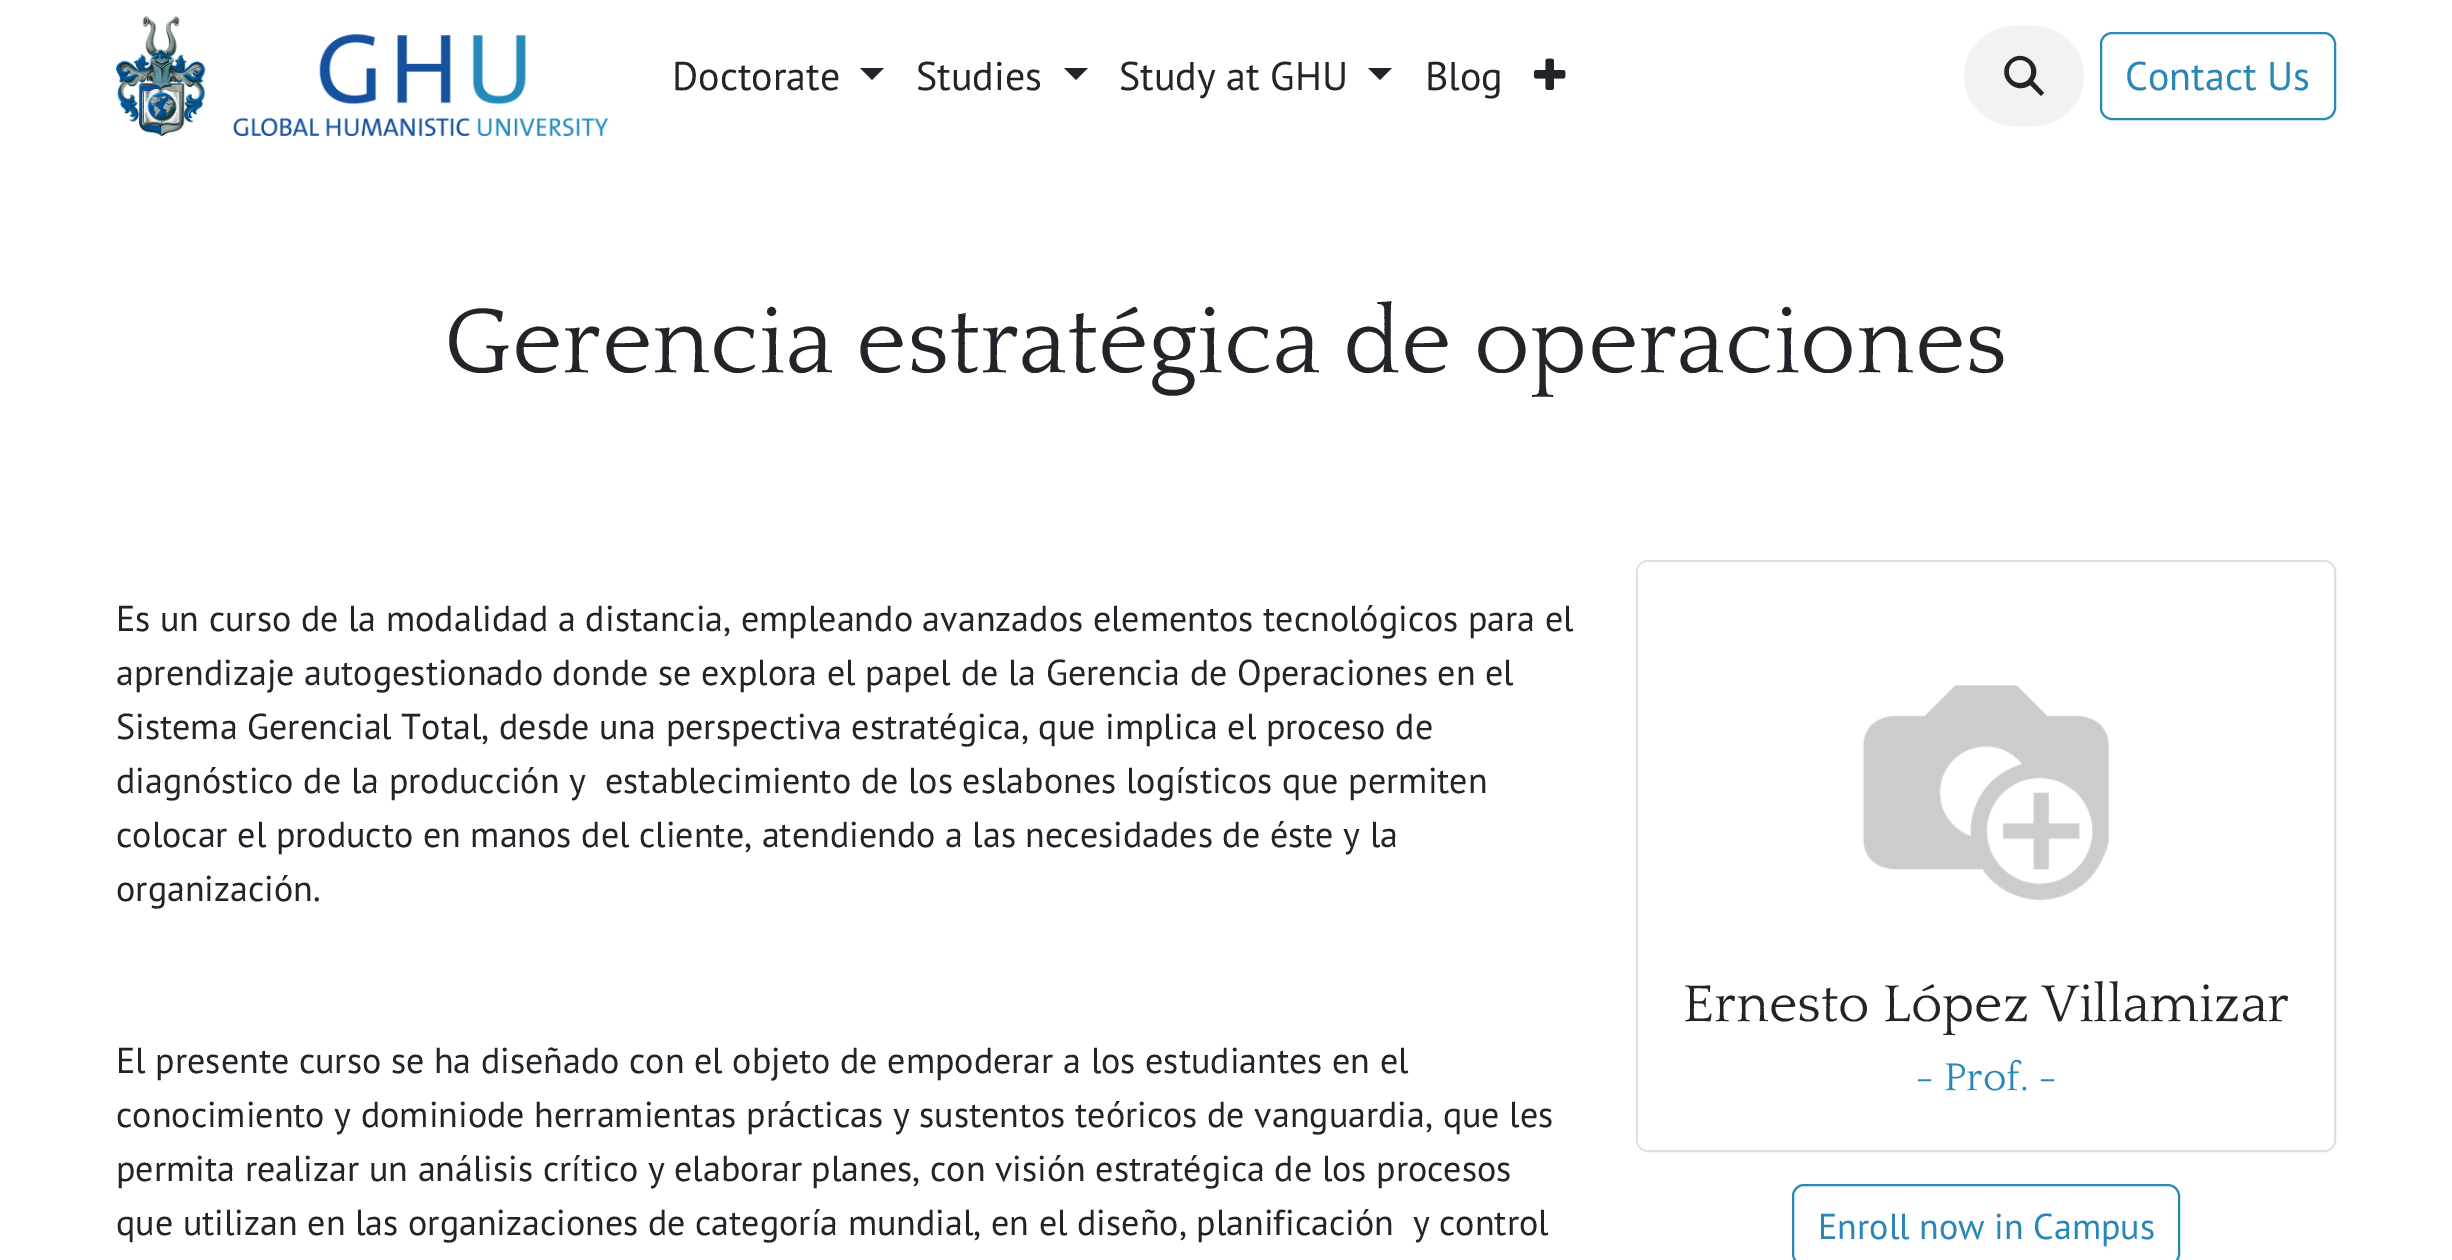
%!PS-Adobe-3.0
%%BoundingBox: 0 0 2452 1260
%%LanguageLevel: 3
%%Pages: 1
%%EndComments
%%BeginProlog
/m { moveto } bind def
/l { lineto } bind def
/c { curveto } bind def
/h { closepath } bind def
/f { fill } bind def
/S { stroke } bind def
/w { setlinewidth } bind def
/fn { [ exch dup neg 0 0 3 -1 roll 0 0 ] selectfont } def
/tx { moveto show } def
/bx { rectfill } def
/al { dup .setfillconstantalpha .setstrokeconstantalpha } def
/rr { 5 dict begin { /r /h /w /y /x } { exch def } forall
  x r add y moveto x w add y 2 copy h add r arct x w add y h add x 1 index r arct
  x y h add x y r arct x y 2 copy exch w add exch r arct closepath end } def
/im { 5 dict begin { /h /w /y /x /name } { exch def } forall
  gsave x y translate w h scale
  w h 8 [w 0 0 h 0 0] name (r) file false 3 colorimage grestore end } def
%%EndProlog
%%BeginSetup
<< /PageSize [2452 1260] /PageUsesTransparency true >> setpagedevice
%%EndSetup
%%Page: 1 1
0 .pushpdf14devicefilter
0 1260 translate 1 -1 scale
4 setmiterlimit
1 setgray
0 0 2452 1260 bx
(image0.raw) 116 16 492 120 im
/PTSans-Regular 40 fn
0.129 0.145 0.161 setrgbcolor
(Doctorate) 672 90 tx
860 68 m 884 68 l 872 80 l h f
(Studies) 916 90 tx
1064 68 m 1088 68 l 1076 80 l h f
(Study at GHU) 1119 90 tx
1368 68 m 1392 68 l 1380 80 l h f
(Blog) 1425 90 tx
(image1.raw) 1534 58 32 32 im
0.949 setgray
1964 26 120 100 50 rr f
0.129 0.145 0.161 setrgbcolor
2008 62 m 2021 46 2045 65 2033 81 c 2044 93 l 2041 96 l 2030 85 l 2015 96 1996 76 2008 62 c h 2020 60 m 2005 60 2005 83 2020 83 c 2035 83 2035 60 2020 60 c h f
0.161 0.529 0.718 setrgbcolor
2 w
2101 33 234 86 11 rr S
(Contact Us) 2125 90 tx
/Quattrocento-Regular 96 fn
0.129 0.145 0.161 setrgbcolor
(Gerencia estratégica de operaciones) 444 372 tx
/PTSans-Regular 36 fn
(Es un curso de la modalidad a distancia, empleando avanzados elementos tecnológicos para el) 116 631 tx
(aprendizaje autogestionado donde se explora el papel de la Gerencia de Operaciones en el) 116 685 tx
(Sistema Gerencial Total, desde una perspectiva estratégica, que implica el proceso de) 116 739 tx
(diagnóstico de la producción y  establecimiento de los eslabones logísticos que permiten) 116 793 tx
(colocar el producto en manos del cliente, atendiendo a las necesidades de éste y la) 116 847 tx
(organización.) 116 901 tx
(El presente curso se ha diseñado con el objeto de empoderar a los estudiantes en el) 116 1073 tx
(conocimiento y dominiode herramientas prácticas y sustentos teóricos de vanguardia, que les) 116 1127 tx
(permita realizar un análisis crítico y elaborar planes, con visión estratégica de los procesos) 116 1181 tx
(que utilizan en las organizaciones de categoría mundial, en el diseño, planificación  y control) 116 1235 tx
0.871 0.871 0.875 setrgbcolor
1637 561 698 590 11 rr S
0.9 al
1 setgray
1638 562 696 588 10 rr f
1 al
(image2.raw) 1862 685 248 216 im
/Quattrocento-Regular 54 fn
0.129 0.145 0.161 setrgbcolor
(Ernesto López Villamizar) 1683 1021 tx
/Quattrocento-Regular 40.5 fn
0.161 0.529 0.718 setrgbcolor
(- Prof. -) 1915 1090 tx
1793 1185 386 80 11 rr S
/PTSans-Regular 36 fn
(Enroll now in Campus) 1818 1239 tx
.poppdf14devicefilter showpage
%%EOF
